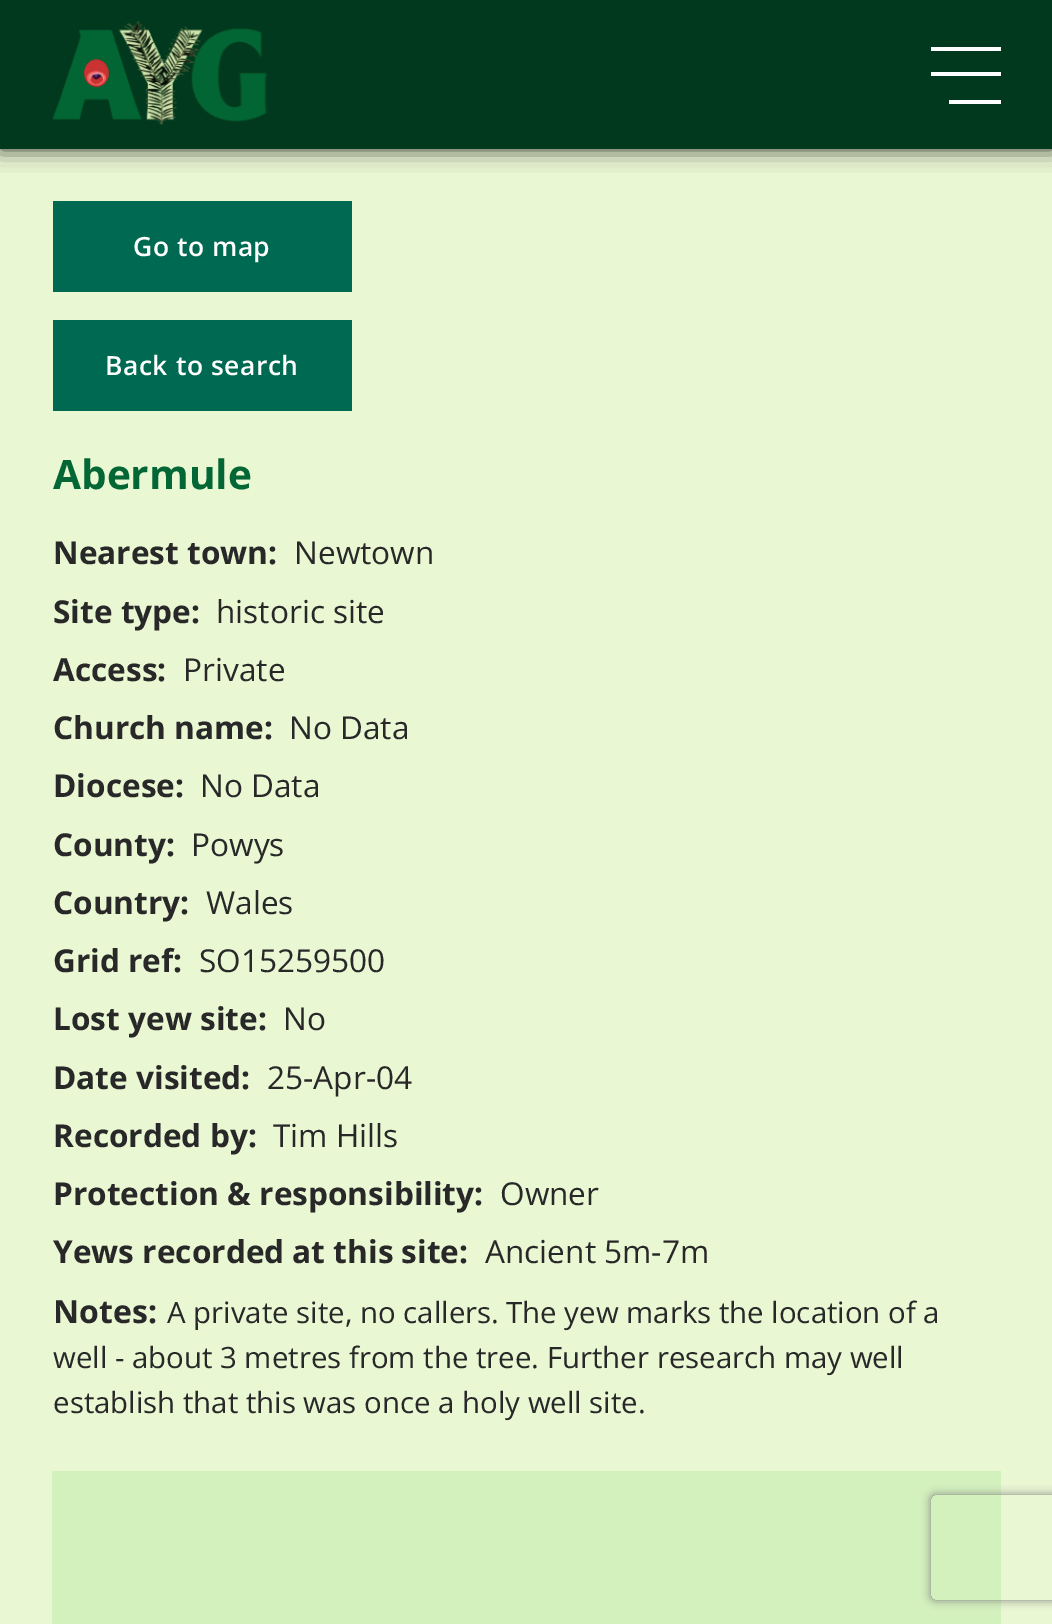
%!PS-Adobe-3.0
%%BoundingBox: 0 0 1052 1624
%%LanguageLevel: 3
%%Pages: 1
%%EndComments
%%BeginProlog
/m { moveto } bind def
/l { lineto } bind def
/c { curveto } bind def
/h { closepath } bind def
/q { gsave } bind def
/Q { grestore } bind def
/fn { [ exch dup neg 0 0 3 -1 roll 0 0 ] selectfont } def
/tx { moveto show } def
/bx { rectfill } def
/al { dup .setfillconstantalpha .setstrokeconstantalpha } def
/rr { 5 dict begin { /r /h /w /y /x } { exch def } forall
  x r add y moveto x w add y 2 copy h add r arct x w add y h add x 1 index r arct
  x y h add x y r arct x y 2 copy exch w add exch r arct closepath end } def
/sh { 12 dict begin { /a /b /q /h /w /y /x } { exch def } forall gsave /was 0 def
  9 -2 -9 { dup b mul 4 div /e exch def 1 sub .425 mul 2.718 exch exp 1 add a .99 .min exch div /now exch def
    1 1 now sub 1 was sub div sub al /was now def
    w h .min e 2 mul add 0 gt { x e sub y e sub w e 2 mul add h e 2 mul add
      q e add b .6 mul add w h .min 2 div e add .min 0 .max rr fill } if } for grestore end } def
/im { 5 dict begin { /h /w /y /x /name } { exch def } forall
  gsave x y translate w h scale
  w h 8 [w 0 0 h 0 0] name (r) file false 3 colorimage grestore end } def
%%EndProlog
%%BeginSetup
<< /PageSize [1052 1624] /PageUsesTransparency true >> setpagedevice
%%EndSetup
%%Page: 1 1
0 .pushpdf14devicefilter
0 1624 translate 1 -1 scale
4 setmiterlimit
0.914 0.969 0.827 setrgbcolor
0 0 1052 1624 bx
0 setgray
0 0 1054 149 0 10.5 0.8 sh
0.004 0.224 0.118 setrgbcolor
0 0 1052 149 bx
(image0.raw) 52 21 215 104 im
1 setgray
931 47 70 4 bx
931 72 70 4 bx
949 100 52 4 bx
0 0.412 0.318 setrgbcolor
53 201 299 91 bx
/OpenSans-SemiBold 26.5 fn
1 setgray
133 256 m 0.5 0 (Go to map) ashow
0 0.412 0.318 setrgbcolor
53 320 299 91 bx
1 setgray
105 375 m 0.5 0 (Back to search) ashow
/OpenSans-Bold 40.5 fn
0.008 0.4 0.208 setrgbcolor
(Abermule) 53 489 tx
/OpenSans-Bold 31.6 fn
0.157 setgray
(Nearest town:) 53 564 tx
/OpenSans-Regular 31.6 fn
(Newtown) 294 564 tx
/OpenSans-Bold 31.6 fn
(Site type:) 53 623 tx
/OpenSans-Regular 31.6 fn
(historic site) 216 623 tx
/OpenSans-Bold 31.6 fn
(Access:) 53 681 tx
/OpenSans-Regular 31.6 fn
(Private) 183 681 tx
/OpenSans-Bold 31.6 fn
(Church name:) 53 739 tx
/OpenSans-Regular 31.6 fn
(No Data) 289 739 tx
/OpenSans-Bold 31.6 fn
(Diocese:) 53 797 tx
/OpenSans-Regular 31.6 fn
(No Data) 200 797 tx
/OpenSans-Bold 31.6 fn
(County:) 53 856 tx
/OpenSans-Regular 31.6 fn
(Powys) 191 856 tx
/OpenSans-Bold 31.6 fn
(Country:) 53 914 tx
/OpenSans-Regular 31.6 fn
(Wales) 206 914 tx
/OpenSans-Bold 31.6 fn
(Grid ref:) 53 972 tx
/OpenSans-Regular 31.6 fn
(SO15259500) 199 972 tx
/OpenSans-Bold 31.6 fn
(Lost yew site:) 53 1030 tx
/OpenSans-Regular 31.6 fn
(No) 283 1030 tx
/OpenSans-Bold 31.6 fn
(Date visited:) 53 1089 tx
/OpenSans-Regular 31.6 fn
(25-Apr-04) 267 1089 tx
/OpenSans-Bold 31.6 fn
(Recorded by:) 53 1147 tx
/OpenSans-Regular 31.6 fn
(Tim Hills) 273 1147 tx
/OpenSans-Bold 31.6 fn
(Protection & responsibility:) 53 1205 tx
/OpenSans-Regular 31.6 fn
(Owner) 500 1205 tx
/OpenSans-Bold 31.6 fn
(Yews recorded at this site:) 53 1263 tx
/OpenSans-Regular 31.6 fn
(Ancient 5m-7m) 485 1263 tx
/OpenSans-Bold 32 fn
(Notes:) 53 1323 tx
/OpenSans-Regular 29.4 fn
(A private site, no callers.) 167 1323 tx
(The yew marks the location of a) 506 1323 tx
(well - about 3 metres from the tree. Further research may well) 53 1368 tx
(establish that this was once a holy well site.) 53 1413 tx
0.827 0.945 0.741 setrgbcolor
52 1471 949 153 bx
q
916 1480 m 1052 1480 l 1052 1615 l 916 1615 l h 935 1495 m 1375 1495 l 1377 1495 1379 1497 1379 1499 c 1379 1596 l 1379 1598 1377 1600 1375 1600 c 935 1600 l 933 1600 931 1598 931 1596 c 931 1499 l 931 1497 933 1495 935 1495 c h eoclip newpath
0.502 setgray
931 1495 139 105 4 4.5 1 sh
Q
.poppdf14devicefilter showpage
%%EOF
